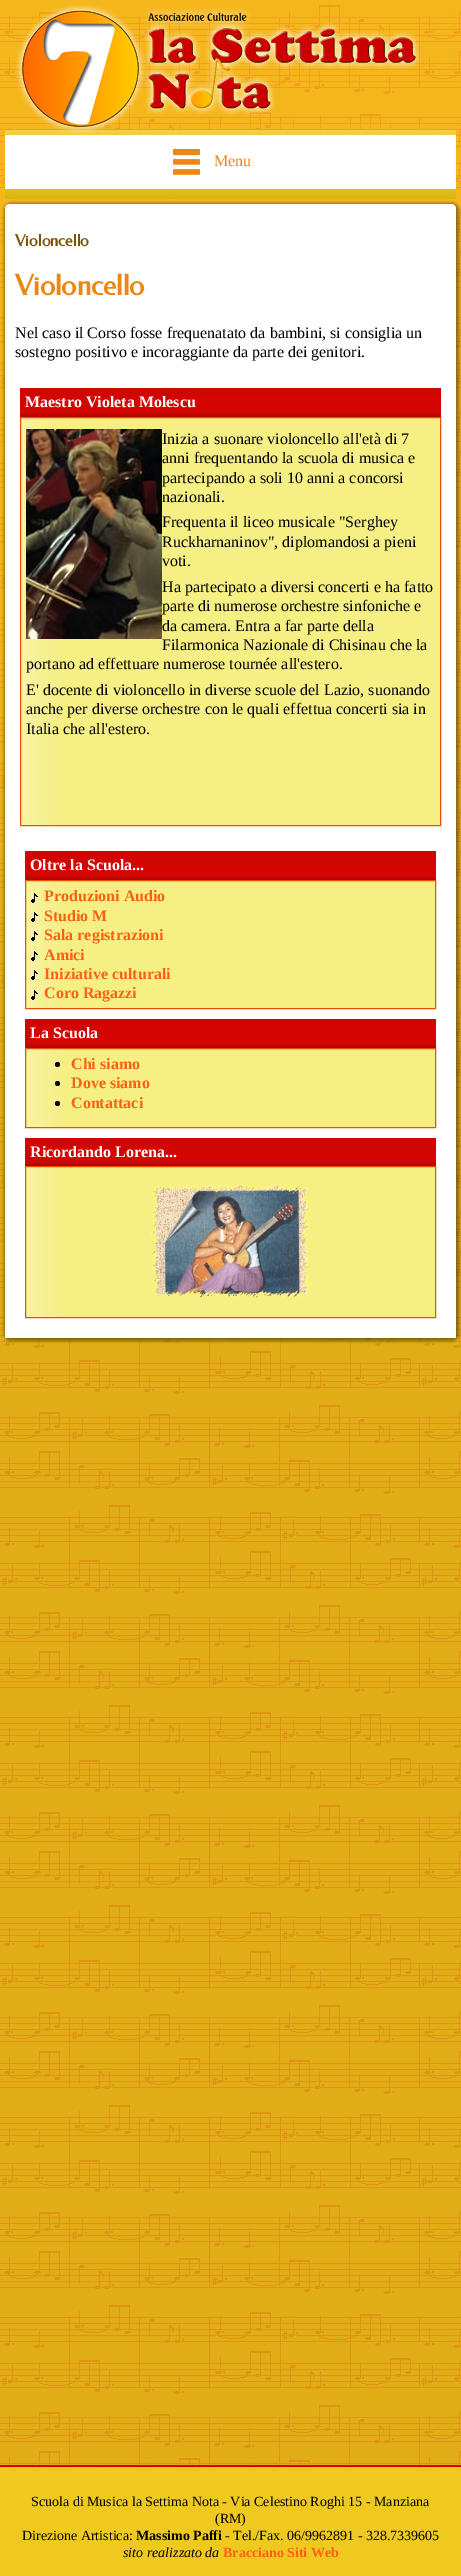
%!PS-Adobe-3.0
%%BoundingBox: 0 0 461 2576
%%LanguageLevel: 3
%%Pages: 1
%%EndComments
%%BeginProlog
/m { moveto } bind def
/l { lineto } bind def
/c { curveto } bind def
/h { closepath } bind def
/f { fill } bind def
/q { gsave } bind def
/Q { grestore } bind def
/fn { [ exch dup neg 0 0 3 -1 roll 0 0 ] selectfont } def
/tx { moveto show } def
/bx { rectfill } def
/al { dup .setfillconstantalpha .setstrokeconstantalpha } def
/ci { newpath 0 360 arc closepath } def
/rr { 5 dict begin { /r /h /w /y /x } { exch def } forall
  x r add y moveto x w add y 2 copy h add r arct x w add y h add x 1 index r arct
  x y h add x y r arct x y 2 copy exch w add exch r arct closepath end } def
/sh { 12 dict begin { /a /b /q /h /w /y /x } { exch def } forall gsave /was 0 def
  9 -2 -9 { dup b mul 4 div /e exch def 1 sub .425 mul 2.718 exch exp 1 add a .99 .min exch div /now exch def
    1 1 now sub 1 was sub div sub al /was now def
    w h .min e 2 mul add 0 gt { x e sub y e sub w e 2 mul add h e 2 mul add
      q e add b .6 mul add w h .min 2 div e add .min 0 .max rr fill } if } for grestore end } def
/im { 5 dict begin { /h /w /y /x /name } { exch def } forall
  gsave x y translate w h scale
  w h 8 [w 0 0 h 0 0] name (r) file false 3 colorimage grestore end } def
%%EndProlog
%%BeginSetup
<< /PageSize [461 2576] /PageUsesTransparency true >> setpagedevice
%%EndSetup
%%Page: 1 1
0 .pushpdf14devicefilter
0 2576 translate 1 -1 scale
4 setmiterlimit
1 setgray
0 0 461 2576 bx
(image0.raw) 0 0 461 2465 im
q 5 130 m 456 130 l 456 199 l 5 199 l h clip newpath
<< /ShadingType 2 /ColorSpace /DeviceRGB /Coords [231 130 231 199] /Extend [true true] /Function << /FunctionType 3 /Domain [0 1] /Functions [<< /FunctionType 2 /Domain [0 1] /C0 [0.949 0.82 0.251] /C1 [0.898 0.757 0.122] /N 1 >> << /FunctionType 2 /Domain [0 1] /C0 [0.898 0.757 0.122] /C1 [0.859 0.714 0.059] /N 1 >> << /FunctionType 2 /Domain [0 1] /C0 [0.859 0.714 0.059] /C1 [0.859 0.714 0.059] /N 1 >>] /Bounds [0.81 0.99] /Encode [0 1 0 1 0 1] >> >> shfill Q
(image1.raw) 15 4 406 130 im
5 135 451 54 bx
(image2.raw) 173 149 27 26 im
/LiberationSerif-Regular 16 fn
0.929 0.529 0.071 setrgbcolor
(Menu) 214 166 tx
0 setgray
4 203 455 1138 7 1.5 0.4 sh
1 setgray
10 204 m 451 204 l 454 204 456 206 456 209 c 456 1338 l 5 1338 l 5 209 l 5 206 7 204 10 204 c h f
/Federo-Bold 16 fn
0.498 0.325 0.02 setrgbcolor
(Violoncello) 15 246 tx
/Federo-Bold 28 fn
0.929 0.529 0.071 setrgbcolor
(Violoncello) 15 295 tx
/LiberationSerif-Regular 16 fn
0 setgray
(Nel caso il Corso fosse frequenatato da bambini, si consiglia un) 15 338 tx
(sostegno positivo e incoraggiante da parte dei genitori.) 15 357 tx
q 20 388 m 441 388 l 441 417 l 20 417 l h clip newpath
<< /ShadingType 2 /ColorSpace /DeviceRGB /Coords [231 388 231 417] /Extend [true true] /Function << /FunctionType 3 /Domain [0 1] /Functions [<< /FunctionType 2 /Domain [0 1] /C0 [0.812 0.024 0.008] /C1 [0.831 0.024 0.008] /N 1 >> << /FunctionType 2 /Domain [0 1] /C0 [0.831 0.024 0.008] /C1 [0.831 0.024 0.008] /N 1 >> << /FunctionType 2 /Domain [0 1] /C0 [0.831 0.024 0.008] /C1 [0.694 0.02 0.008] /N 1 >>] /Bounds [0.4 0.85] /Encode [0 1 0 1 0 1] >> >> shfill Q
/LiberationSerif-Bold 16 fn
1 setgray
(Maestro Violeta Molescu) 25 407 tx
q 21 418 m 440 418 l 440 825 l 21 825 l h clip newpath
<< /ShadingType 2 /ColorSpace /DeviceRGB /Coords [21 622 440 622] /Extend [true true] /Function << /FunctionType 3 /Domain [0 1] /Functions [<< /FunctionType 2 /Domain [0 1] /C0 [0.976 0.953 0.643] /C1 [0.965 0.937 0.514] /N 1 >> << /FunctionType 2 /Domain [0 1] /C0 [0.965 0.937 0.514] /C1 [0.965 0.937 0.514] /N 1 >>] /Bounds [0.1] /Encode [0 1 0 1] >> >> shfill Q
0.922 0.318 0.02 setrgbcolor
20.5 417.5 420 408 rectstroke
(image3.raw) 26 429 136 210 im
/LiberationSerif-Regular 16 fn
0 setgray
(Inizia a suonare violoncello all'età di 7) 162 444 tx
(anni frequentando la scuola di musica e) 162 463 tx
(partecipando a soli 10 anni a concorsi) 162 483 tx
(nazionali.) 162 502 tx
(Frequenta il liceo musicale "Serghey) 162 527 tx
(Ruckharnaninov", diplomandosi a pieni) 162 547 tx
(voti.) 162 566 tx
(Ha partecipato a diversi concerti e ha fatto) 162 592 tx
(parte di numerose orchestre sinfoniche e) 162 611 tx
(da camera. Entra a far parte della) 162 631 tx
(Filarmonica Nazionale di Chisinau che la) 162 650 tx
(portano ad effettuare numerose tournée all'estero.) 26 669 tx
(E' docente di violoncello in diverse scuole del Lazio, suonando) 26 695 tx
(anche per diverse orchestre con le quali effettua concerti sia in) 26 714 tx
(Italia che all'estero.) 26 734 tx
q 25 851 m 436 851 l 436 880 l 25 880 l h clip newpath
<< /ShadingType 2 /ColorSpace /DeviceRGB /Coords [231 851 231 880] /Extend [true true] /Function << /FunctionType 3 /Domain [0 1] /Functions [<< /FunctionType 2 /Domain [0 1] /C0 [0.812 0.024 0.008] /C1 [0.831 0.024 0.008] /N 1 >> << /FunctionType 2 /Domain [0 1] /C0 [0.831 0.024 0.008] /C1 [0.831 0.024 0.008] /N 1 >> << /FunctionType 2 /Domain [0 1] /C0 [0.831 0.024 0.008] /C1 [0.694 0.02 0.008] /N 1 >>] /Bounds [0.4 0.85] /Encode [0 1 0 1 0 1] >> >> shfill Q
/LiberationSerif-Bold 16 fn
1 setgray
(Oltre la Scuola...) 30 870 tx
q 26 881 m 435 881 l 435 1008 l 26 1008 l h clip newpath
<< /ShadingType 2 /ColorSpace /DeviceRGB /Coords [26 945 435 945] /Extend [true true] /Function << /FunctionType 3 /Domain [0 1] /Functions [<< /FunctionType 2 /Domain [0 1] /C0 [0.976 0.953 0.643] /C1 [0.965 0.937 0.514] /N 1 >> << /FunctionType 2 /Domain [0 1] /C0 [0.965 0.937 0.514] /C1 [0.965 0.937 0.514] /N 1 >>] /Bounds [0.1] /Encode [0 1 0 1] >> >> shfill Q
0.922 0.318 0.02 setrgbcolor
25.5 880.5 410 128 rectstroke
(image4.raw) 31 893 7 10 im
0.98 0.38 0.078 setrgbcolor
(Produzioni Audio) 44 901 tx
(image4.raw) 31 912 7 10 im
(Studio M) 44 921 tx
(image4.raw) 31 931 7 10 im
(Sala registrazioni) 44 940 tx
(image4.raw) 31 951 7 10 im
(Amici) 44 960 tx
(image4.raw) 31 970 7 10 im
(Iniziative culturali) 44 979 tx
(image4.raw) 31 990 7 10 im
(Coro Ragazzi) 44 998 tx
q 25 1019 m 436 1019 l 436 1048 l 25 1048 l h clip newpath
<< /ShadingType 2 /ColorSpace /DeviceRGB /Coords [231 1019 231 1048] /Extend [true true] /Function << /FunctionType 3 /Domain [0 1] /Functions [<< /FunctionType 2 /Domain [0 1] /C0 [0.812 0.024 0.008] /C1 [0.831 0.024 0.008] /N 1 >> << /FunctionType 2 /Domain [0 1] /C0 [0.831 0.024 0.008] /C1 [0.831 0.024 0.008] /N 1 >> << /FunctionType 2 /Domain [0 1] /C0 [0.831 0.024 0.008] /C1 [0.694 0.02 0.008] /N 1 >>] /Bounds [0.4 0.85] /Encode [0 1 0 1 0 1] >> >> shfill Q
1 setgray
(La Scuola) 30 1038 tx
q 26 1049 m 435 1049 l 435 1127 l 26 1127 l h clip newpath
<< /ShadingType 2 /ColorSpace /DeviceRGB /Coords [26 1088 435 1088] /Extend [true true] /Function << /FunctionType 3 /Domain [0 1] /Functions [<< /FunctionType 2 /Domain [0 1] /C0 [0.976 0.953 0.643] /C1 [0.965 0.937 0.514] /N 1 >> << /FunctionType 2 /Domain [0 1] /C0 [0.965 0.937 0.514] /C1 [0.965 0.937 0.514] /N 1 >>] /Bounds [0.1] /Encode [0 1 0 1] >> >> shfill Q
0.922 0.318 0.02 setrgbcolor
25.5 1048.5 410 79 rectstroke
0 setgray
57.5 1064.5 2.5 ci f
0.98 0.38 0.078 setrgbcolor
(Chi siamo) 71 1069 tx
0 setgray
57.5 1083.5 2.5 ci f
0.98 0.38 0.078 setrgbcolor
(Dove siamo) 71 1088 tx
0 setgray
57.5 1103.5 2.5 ci f
0.98 0.38 0.078 setrgbcolor
(Contattaci) 71 1108 tx
q 25 1138 m 436 1138 l 436 1166 l 25 1166 l h clip newpath
<< /ShadingType 2 /ColorSpace /DeviceRGB /Coords [231 1138 231 1166] /Extend [true true] /Function << /FunctionType 3 /Domain [0 1] /Functions [<< /FunctionType 2 /Domain [0 1] /C0 [0.812 0.024 0.008] /C1 [0.831 0.024 0.008] /N 1 >> << /FunctionType 2 /Domain [0 1] /C0 [0.831 0.024 0.008] /C1 [0.831 0.024 0.008] /N 1 >> << /FunctionType 2 /Domain [0 1] /C0 [0.831 0.024 0.008] /C1 [0.694 0.02 0.008] /N 1 >>] /Bounds [0.4 0.85] /Encode [0 1 0 1 0 1] >> >> shfill Q
1 setgray
(Ricordando Lorena...) 30 1157 tx
q 26 1167 m 435 1167 l 435 1317 l 26 1317 l h clip newpath
<< /ShadingType 2 /ColorSpace /DeviceRGB /Coords [26 1242 435 1242] /Extend [true true] /Function << /FunctionType 3 /Domain [0 1] /Functions [<< /FunctionType 2 /Domain [0 1] /C0 [0.976 0.953 0.643] /C1 [0.965 0.937 0.514] /N 1 >> << /FunctionType 2 /Domain [0 1] /C0 [0.965 0.937 0.514] /C1 [0.965 0.937 0.514] /N 1 >>] /Bounds [0.1] /Encode [0 1 0 1] >> >> shfill Q
0.922 0.318 0.02 setrgbcolor
25.5 1166.5 410 151 rectstroke
(image5.raw) 149 1183 163 116 im
0.937 0.788 0.122 setrgbcolor
0 2467 461 109 bx
0.812 0.024 0.008 setrgbcolor
0 2465 461 2 bx
/LiberationSerif-Regular 14 fn
0 setgray
(Scuola di Musica la Settima Nota - Via Celestino Roghi 15 - Manziana) 31 2506 tx
(\(RM\)) 215 2523 tx
(Direzione Artistica:) 22 2540 tx
/LiberationSerif-Bold 14 fn
(Massimo Paffi) 136 2540 tx
/LiberationSerif-Regular 14 fn
(- Tel./Fax. 06/9962891 - 328.7339605) 225 2540 tx
/LiberationSerif-Italic 14 fn
(sito realizzato da) 123 2557 tx
/LiberationSerif-Bold 14 fn
0.98 0.38 0.078 setrgbcolor
(Bracciano Siti Web) 223 2557 tx
.poppdf14devicefilter showpage
%%EOF
